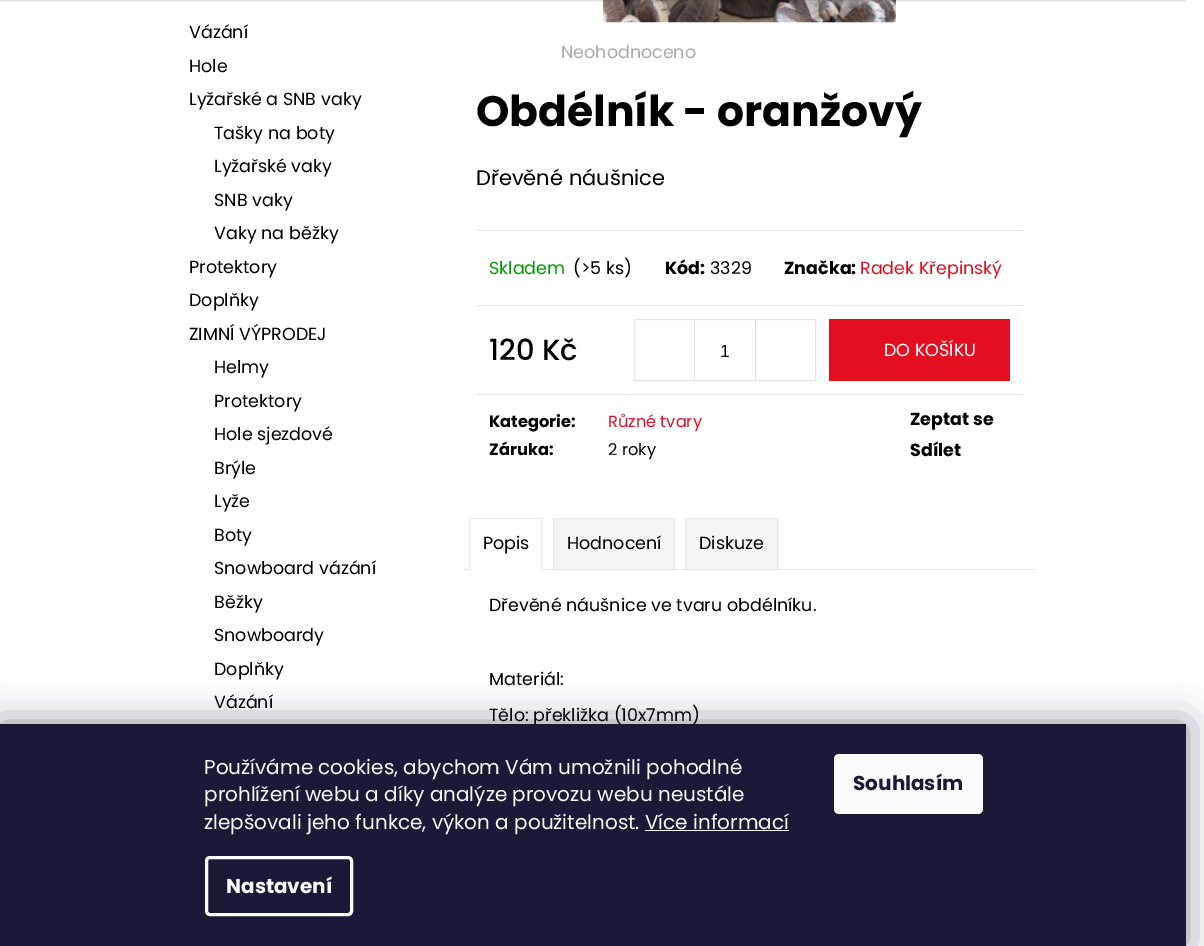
%!PS-Adobe-3.0
%%BoundingBox: 0 0 1204 946
%%LanguageLevel: 3
%%Pages: 1
%%EndComments
%%BeginProlog
/m { moveto } bind def
/l { lineto } bind def
/h { closepath } bind def
/f { fill } bind def
/S { stroke } bind def
/q { gsave } bind def
/Q { grestore } bind def
/w { setlinewidth } bind def
/fn { [ exch dup neg 0 0 3 -1 roll 0 0 ] selectfont } def
/tx { moveto show } def
/bx { rectfill } def
/al { dup .setfillconstantalpha .setstrokeconstantalpha } def
/rr { 5 dict begin { /r /h /w /y /x } { exch def } forall
  x r add y moveto x w add y 2 copy h add r arct x w add y h add x 1 index r arct
  x y h add x y r arct x y 2 copy exch w add exch r arct closepath end } def
/sh { 12 dict begin { /a /b /q /h /w /y /x } { exch def } forall gsave /was 0 def
  9 -2 -9 { dup b mul 4 div /e exch def 1 sub .425 mul 2.718 exch exp 1 add a .99 .min exch div /now exch def
    1 1 now sub 1 was sub div sub al /was now def
    w h .min e 2 mul add 0 gt { x e sub y e sub w e 2 mul add h e 2 mul add
      q e add b .6 mul add w h .min 2 div e add .min 0 .max rr fill } if } for grestore end } def
/im { 5 dict begin { /h /w /y /x /name } { exch def } forall
  gsave x y translate w h scale
  w h 8 [w 0 0 h 0 0] name (r) file false 3 colorimage grestore end } def
%%EndProlog
%%BeginSetup
<< /PageSize [1204 946] /PageUsesTransparency true >> setpagedevice
%%EndSetup
%%Page: 1 1
0 .pushpdf14devicefilter
0 946 translate 1 -1 scale
4 setmiterlimit
1 setgray
0 0 1204 946 bx
(image0.raw) 602 0 294 23 im
0 setgray
0 -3 1186 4 0 1 0.16 sh
/Poppins-Regular 17.5 fn
(Vázání) 189 38 tx
(Hole) 189 72 tx
(Lyžařské a SNB vaky) 189 105 tx
(Tašky na boty) 214 139 tx
(Lyžařské vaky) 214 172 tx
(SNB vaky) 214 206 tx
(Vaky na běžky) 214 239 tx
(Protektory) 189 273 tx
(Doplňky) 189 306 tx
(ZIMNÍ VÝPRODEJ) 189 340 tx
(Helmy) 214 373 tx
(Protektory) 214 407 tx
(Hole sjezdové) 214 440 tx
(Brýle) 214 474 tx
(Lyže) 214 507 tx
(Boty) 214 541 tx
(Snowboard vázání) 214 574 tx
(Běžky) 214 608 tx
(Snowboardy) 214 641 tx
(Doplňky) 214 675 tx
(Vázání) 214 708 tx
0.667 setgray
(Neohodnoceno) 561 58 tx
/Poppins-Bold 42.5 fn
0 setgray
(Obdélník - oranžový) 476 126 tx
/Poppins-Regular 21 fn
(Dřevěné náušnice) 476 185 tx
0.906 setgray
476 230 547 1 bx
476 305 547 1 bx
/Poppins-Regular 17.5 fn
0 0.6 0.004 setrgbcolor
(Skladem) 489 274 tx
0 setgray
(\(>5 ks\)) 573 274 tx
/Poppins-Bold 17.5 fn
(Kód:) 665 274 tx
/Poppins-Regular 17.5 fn
(3329) 710 274 tx
/Poppins-Bold 17.5 fn
(Značka:) 784 274 tx
/Poppins-Regular 17.5 fn
0.894 0.055 0.125 setrgbcolor
(Radek Křepinský) 860 274 tx
0.906 setgray
476 394 547 1 bx
/Poppins-Medium 29 fn
0 setgray
(120 Kč) 489 360 tx
0.902 setgray
634.5 319.5 181 61 rectstroke
694 320 1 60 bx
/LiberationSans-Regular 17.5 fn
0 setgray
(1) 720 357 tx
0.902 setgray
755 320 1 60 bx
0.894 0.055 0.125 setrgbcolor
829 319 181 62 bx
/Poppins-Regular 17.5 fn
1 setgray
(DO KOŠÍKU) 884 356 tx
/Poppins-Bold 16.25 fn
0 setgray
(Kategorie:) 489 427 tx
/Poppins-Regular 16.25 fn
0.894 0.055 0.125 setrgbcolor
(Různé tvary) 608 427 tx
/Poppins-Bold 16.25 fn
0 setgray
(Záruka:) 489 455 tx
/Poppins-Regular 16.25 fn
(2 roky) 608 455 tx
/Poppins-Bold 17.5 fn
(Zeptat se) 910 425 tx
(Sdílet) 910 456 tx
0.906 setgray
464 569 571 1 bx
469 518 74 1 bx
541 518 1 52 bx
1 setgray
469 569 74 1 bx
0.906 setgray
469 518 1 52 bx
/Poppins-Regular 17.5 fn
0 setgray
(Popis) 483 549 tx
0.961 setgray
553.5 518.5 m 674.5 518.5 l 674.5 569.5 l 553.5 569.5 l h q f Q
0.906 setgray
S
0 setgray
(Hodnocení) 567 549 tx
0.961 setgray
685.5 518.5 m 777.5 518.5 l 777.5 569.5 l 685.5 569.5 l h q f Q
0.906 setgray
S
0 setgray
(Diskuze) 699 549 tx
(Dřevěné náušnice ve tvaru obdélníku.) 489 611 tx
(Materiál:) 489 685 tx
(Tělo: překližka \(10x7mm\)) 489 721 tx
0.106 0.098 0.224 setrgbcolor
0 724 1186 222 0 19 0.5 sh
0.102 0.098 0.216 setrgbcolor
0 724 1186 222 bx
/Poppins-Regular 20 fn
0.973 0.98 0.984 setrgbcolor
(Používáme cookies, abychom Vám umožnili pohodlné) 204 774 tx
(prohlížení webu a díky analýze provozu webu neustále) 204 801 tx
(zlepšovali jeho funkce, výkon a použitelnost. Více informací) 204 829 tx
645 830 144 1 bx
3 w
206.5 857.5 145 57 3.5 rr S
/Poppins-Bold 20 fn
(Nastavení) 226 893 tx
834 754 149 60 5 rr f
0.102 0.098 0.216 setrgbcolor
(Souhlasím) 853 790 tx
.poppdf14devicefilter showpage
%%EOF
